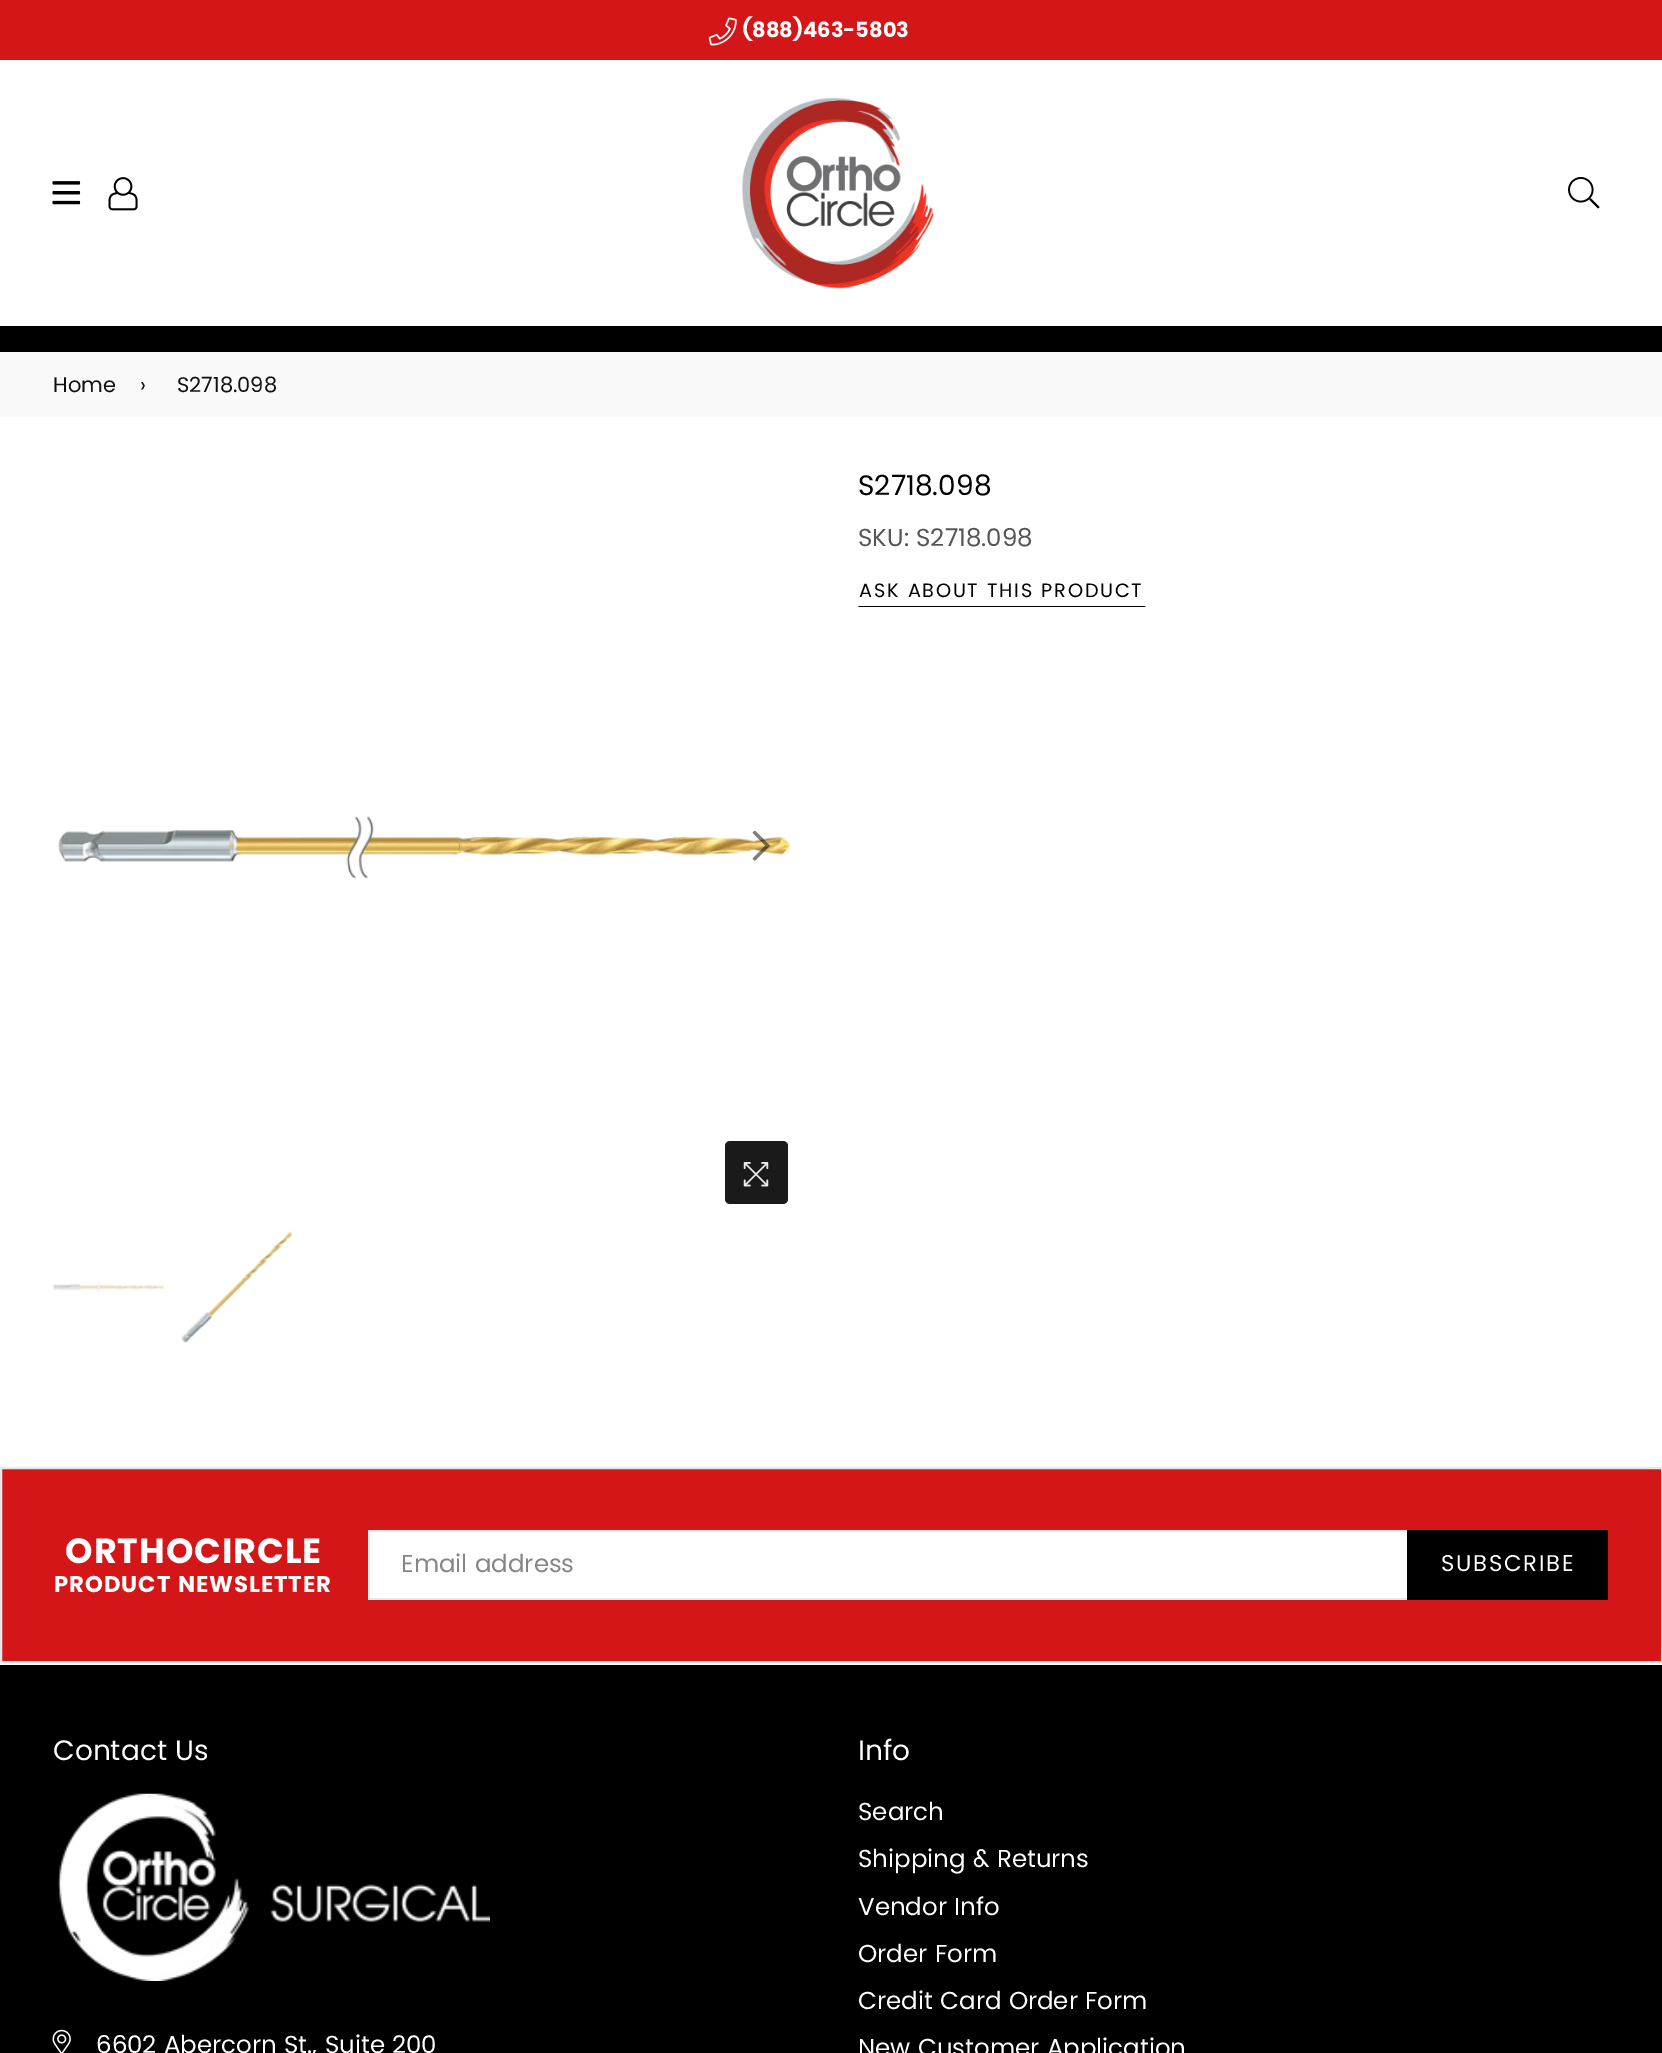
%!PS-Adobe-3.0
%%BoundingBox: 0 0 1662 2053
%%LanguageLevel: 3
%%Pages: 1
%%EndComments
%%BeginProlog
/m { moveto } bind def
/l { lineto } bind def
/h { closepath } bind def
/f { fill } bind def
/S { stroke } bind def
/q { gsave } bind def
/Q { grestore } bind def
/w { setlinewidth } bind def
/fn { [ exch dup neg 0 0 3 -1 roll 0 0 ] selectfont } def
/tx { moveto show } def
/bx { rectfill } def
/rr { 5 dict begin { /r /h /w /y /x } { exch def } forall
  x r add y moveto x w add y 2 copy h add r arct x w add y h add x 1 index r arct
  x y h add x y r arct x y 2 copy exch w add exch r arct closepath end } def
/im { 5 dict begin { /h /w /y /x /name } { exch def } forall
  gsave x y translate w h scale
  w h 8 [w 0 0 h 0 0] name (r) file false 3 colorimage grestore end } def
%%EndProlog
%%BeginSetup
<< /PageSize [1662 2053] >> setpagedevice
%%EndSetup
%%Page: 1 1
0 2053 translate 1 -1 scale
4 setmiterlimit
1 setgray
0 0 1662 2053 bx
0.831 0.086 0.094 setrgbcolor
0 0 1662 60 bx
(image0.raw) 708 17 29 29 im
/Poppins-Bold 21 fn
1 setgray
(\(888\)463-5803) 742 37 tx
(image1.raw) 52 181 29 24 im
(image2.raw) 108 177 30 34 im
(image3.raw) 741 97 193 192 im
(image4.raw) 1568 177 32 32 im
0 setgray
0 326 1662 26 bx
0.976 setgray
0 352 1662 65 bx
/Poppins-Regular 21 fn
0.067 setgray
(Home) 53 392 tx
(›) 140 392 tx
(S2718.098) 177 392 tx
/Poppins-Regular 28 fn
0 setgray
(S2718.098) 858 495 tx
/Poppins-Regular 24.5 fn
0.333 setgray
(SKU: S2718.098) 858 546 tx
0 setgray
1146 607 m 858 607 l 859 606 l 1144 606 l h f
/Poppins-Regular 19.25 fn
859 597 m 1.75 0 (ASK ABOUT THIS PRODUCT) ashow
(image5.raw) 58 816 733 63 im
(image6.raw) 87 830 18 31 im
(image7.raw) 752 830 18 31 im
0.102 setgray
725 1141 63 63 5 rr f
(image8.raw) 743 1162 26 25 im
(image9.raw) 53 1283 112 9 im
(image10.raw) 181 1231 112 112 im
0.831 0.086 0.094 setrgbcolor
1 1468 m 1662 1468 l 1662 1662 l 1 1662 l h q f Q
0.91 0.914 0.922 setrgbcolor
2 w
S
/Poppins-Bold 35 fn
1 setgray
65 1563 m 1 0 (ORTHOCIRCLE) ashow
/Poppins-Bold 22.75 fn
54 1592 m 1 0 (PRODUCT NEWSLETTER) ashow
370 1532 1037 66 bx
0.91 0.914 0.922 setrgbcolor
368 1530 1039 2 bx
368 1598 1039 2 bx
368 1530 2 70 bx
/Poppins-Regular 24.5 fn
0.522 setgray
(Email address) 401 1572 tx
0 setgray
1407 1530 201 70 bx
/Poppins-Regular 22.75 fn
1 setgray
1441 1571 m 1.75 0 (SUBSCRIBE) ashow
0 setgray
0 1665 1662 388 bx
/Poppins-Regular 28 fn
1 setgray
(Contact Us) 53 1760 tx
(image11.raw) 57 1793 433 188 im
(image12.raw) 52 2029 19 24 im
/Poppins-Regular 24.5 fn
(6602 Abercorn St., Suite 200) 96 2053 tx
/Poppins-Regular 28 fn
(Info) 858 1760 tx
/Poppins-Regular 24.5 fn
(Search) 858 1820 tx
(Shipping & Returns) 858 1867 tx
(Vendor Info) 858 1915 tx
(Order Form) 858 1962 tx
(Credit Card Order Form) 858 2009 tx
(New Customer Application) 858 2056 tx
showpage
%%EOF
